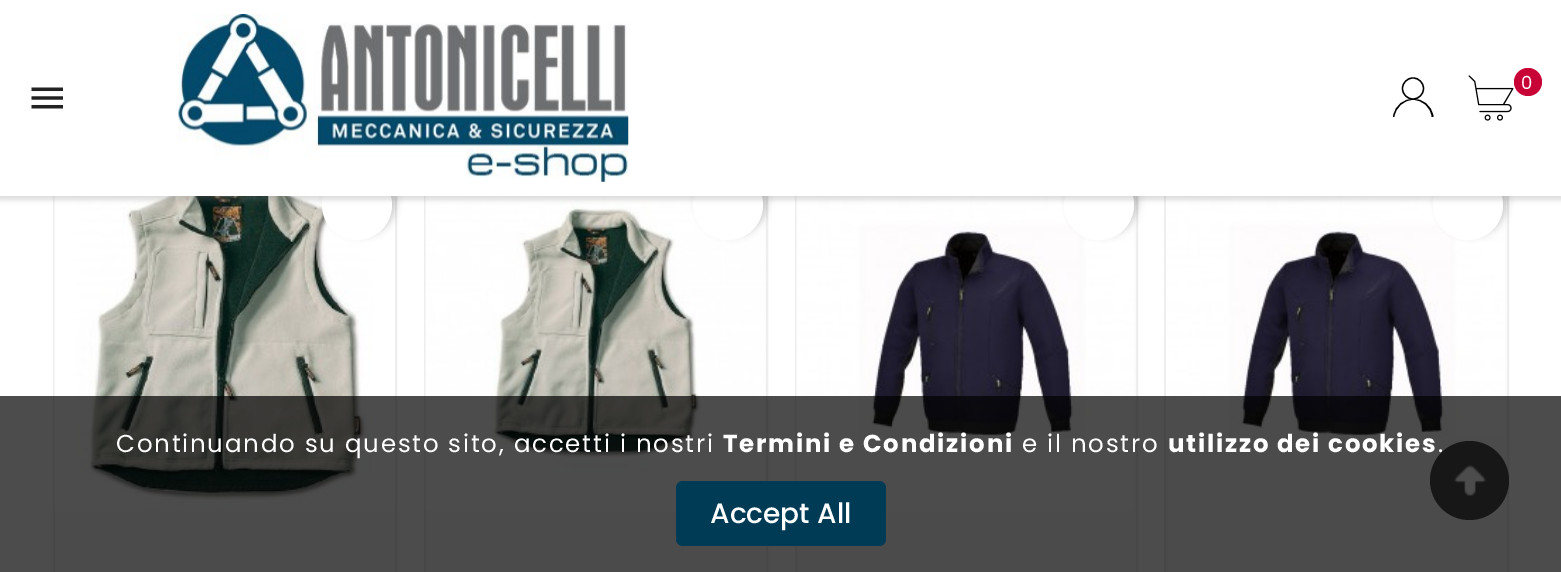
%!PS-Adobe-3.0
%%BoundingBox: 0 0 1561 572
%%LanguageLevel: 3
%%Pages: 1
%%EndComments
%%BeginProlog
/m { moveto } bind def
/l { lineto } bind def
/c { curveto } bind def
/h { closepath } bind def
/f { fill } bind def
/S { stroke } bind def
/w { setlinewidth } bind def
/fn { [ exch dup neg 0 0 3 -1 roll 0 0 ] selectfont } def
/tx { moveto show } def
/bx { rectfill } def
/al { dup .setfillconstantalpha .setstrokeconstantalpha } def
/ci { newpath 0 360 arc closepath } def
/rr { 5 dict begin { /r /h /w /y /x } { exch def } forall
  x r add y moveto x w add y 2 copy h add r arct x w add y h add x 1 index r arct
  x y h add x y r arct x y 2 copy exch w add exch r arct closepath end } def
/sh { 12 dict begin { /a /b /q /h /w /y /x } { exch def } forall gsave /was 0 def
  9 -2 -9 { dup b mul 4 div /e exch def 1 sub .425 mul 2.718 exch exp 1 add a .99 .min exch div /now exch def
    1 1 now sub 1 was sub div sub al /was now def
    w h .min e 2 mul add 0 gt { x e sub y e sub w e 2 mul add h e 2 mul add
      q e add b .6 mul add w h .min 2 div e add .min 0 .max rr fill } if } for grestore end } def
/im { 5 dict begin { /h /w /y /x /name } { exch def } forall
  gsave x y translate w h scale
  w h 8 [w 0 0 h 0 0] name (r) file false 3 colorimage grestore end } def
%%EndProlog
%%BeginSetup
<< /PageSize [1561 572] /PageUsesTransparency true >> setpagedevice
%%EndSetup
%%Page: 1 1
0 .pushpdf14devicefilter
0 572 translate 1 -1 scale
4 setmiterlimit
1 setgray
0 0 1561 572 bx
0.984 setgray
55 511 340 61 bx
0.933 setgray
2 w
54 153 342 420 rectstroke
(image3.raw) 54 196 341 315 im
0 setgray
326 166 70 70 35 3.5 0.2 sh
1 setgray
357 205 35 ci f
0.984 setgray
426 196 340 376 bx
0.933 setgray
425 153 342 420 rectstroke
(image4.raw) 425 196 340 315 im
0 setgray
697 166 70 70 35 3.5 0.2 sh
1 setgray
728 205 35 ci f
0.984 setgray
797 196 339 376 bx
0.933 setgray
796 153 341 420 rectstroke
(image5.raw) 796 196 338 315 im
0 setgray
1068 166 70 70 35 3.5 0.2 sh
1 setgray
1099 205 35 ci f
0.984 setgray
1166 196 341 376 bx
0.933 setgray
1165 153 343 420 rectstroke
(image6.raw) 1166 196 339 241 im
0 setgray
1437 166 70 70 35 3.5 0.2 sh
1 setgray
1468 205 35 ci f
0.502 setgray
-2 0 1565 200 0 2.5 0.27 sh
1 setgray
0 0 1561 196 bx
(image0.raw) 178 14 451 168 im
0 setgray
0.8 w
1413 99.5 m 1423 99.5 1431 107 1432 116.5 c 1433 116.5 l 1429.5 93.5 1397 93.5 1393.5 116.5 c 1394 116.5 l 1395.5 107 1403.5 99.5 1413 99.5 c h S
1.3 w
1413 88.5 10.5 ci S
(image1.raw) 1468 75 46 46 im
0.784 0.016 0.212 setrgbcolor
1528 82 14 ci f
/Poppins-Regular 18 fn
1 setgray
1521 89 m 1.75 0 (0) ashow
(image2.raw) 31 87 32 22 im
0.298 setgray
1469.5 480.5 39.5 ci f
(image7.raw) 1454 465 33 31 im
0.7 al
0 setgray
0 396 1561 176 bx
/Poppins-Regular 24.5 fn
1 al
1 setgray
116 452 m 1.75 0 (Continuando su questo sito, accetti i nostri) ashow
/Poppins-Bold 24.5 fn
723 452 m 1.75 0 (Termini e Condizioni) ashow
/Poppins-Regular 24.5 fn
1022 452 m 1.75 0 (e il nostro) ashow
/Poppins-Bold 24.5 fn
1168 452 m 1.75 0 (utilizzo dei cookies) ashow
/Poppins-Regular 24.5 fn
1438 452 m 1.75 0 (.) ashow
0 0.231 0.337 setrgbcolor
676 481 210 65 7 rr f
/Poppins-Medium 28 fn
1 setgray
(Accept All) 710 523 tx
.poppdf14devicefilter showpage
%%EOF
